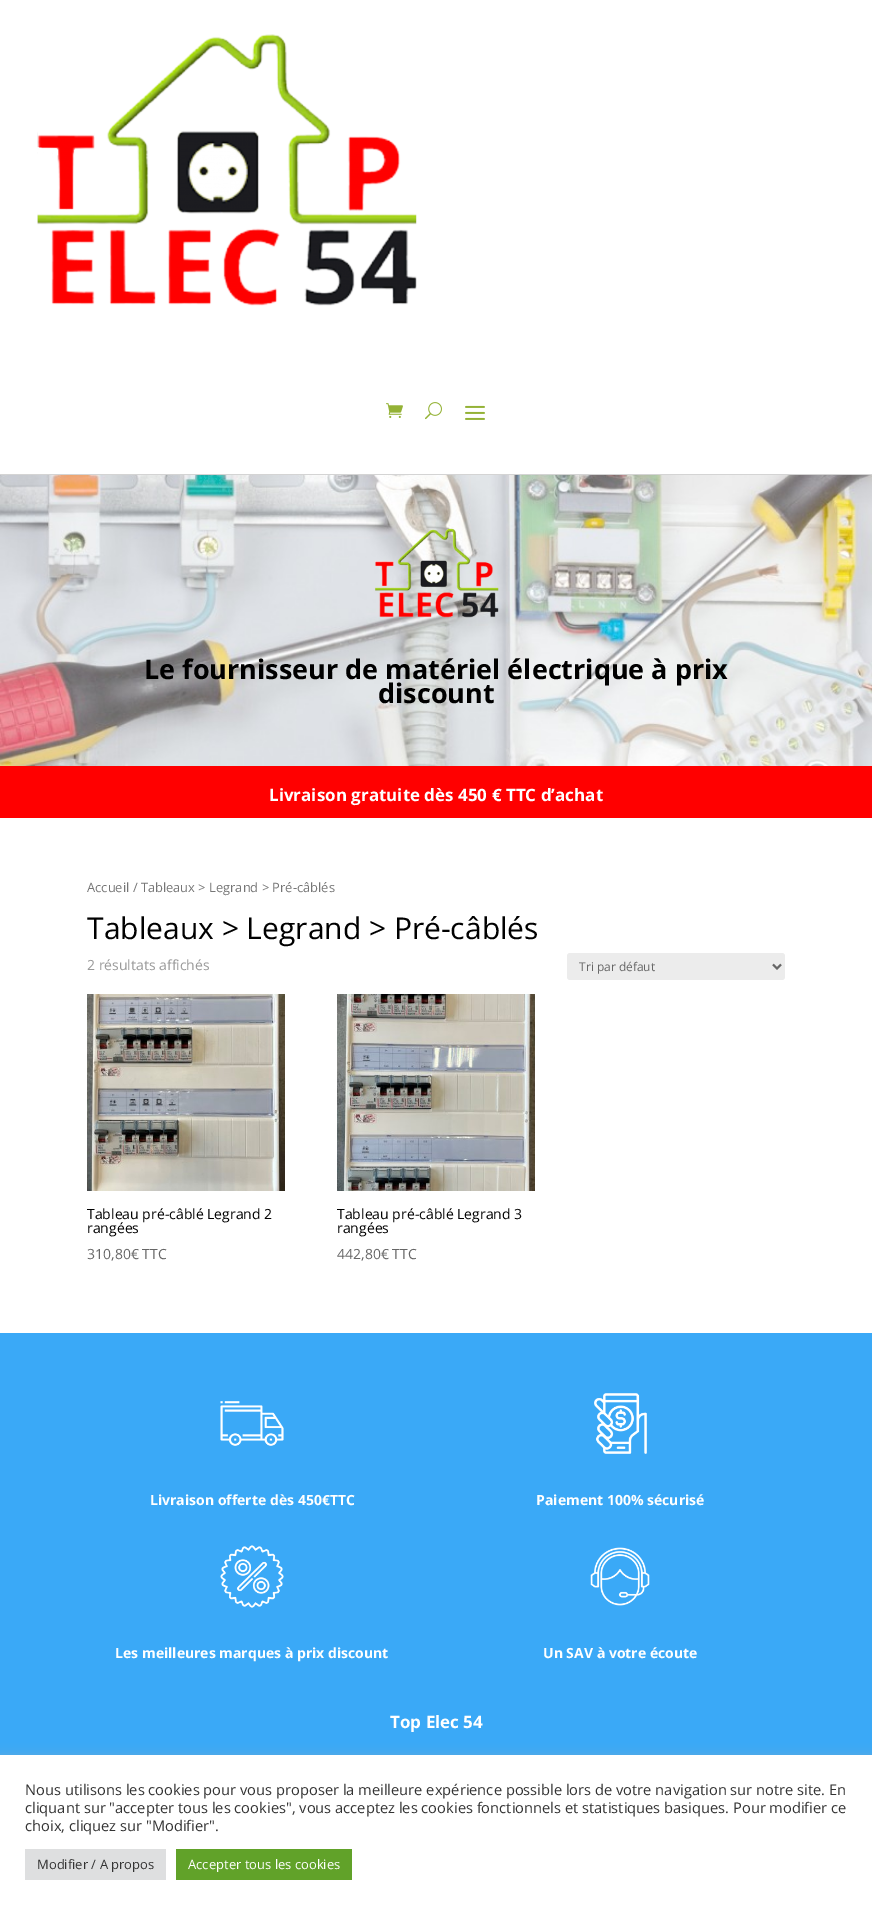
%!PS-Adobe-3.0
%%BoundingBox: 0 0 872 1910
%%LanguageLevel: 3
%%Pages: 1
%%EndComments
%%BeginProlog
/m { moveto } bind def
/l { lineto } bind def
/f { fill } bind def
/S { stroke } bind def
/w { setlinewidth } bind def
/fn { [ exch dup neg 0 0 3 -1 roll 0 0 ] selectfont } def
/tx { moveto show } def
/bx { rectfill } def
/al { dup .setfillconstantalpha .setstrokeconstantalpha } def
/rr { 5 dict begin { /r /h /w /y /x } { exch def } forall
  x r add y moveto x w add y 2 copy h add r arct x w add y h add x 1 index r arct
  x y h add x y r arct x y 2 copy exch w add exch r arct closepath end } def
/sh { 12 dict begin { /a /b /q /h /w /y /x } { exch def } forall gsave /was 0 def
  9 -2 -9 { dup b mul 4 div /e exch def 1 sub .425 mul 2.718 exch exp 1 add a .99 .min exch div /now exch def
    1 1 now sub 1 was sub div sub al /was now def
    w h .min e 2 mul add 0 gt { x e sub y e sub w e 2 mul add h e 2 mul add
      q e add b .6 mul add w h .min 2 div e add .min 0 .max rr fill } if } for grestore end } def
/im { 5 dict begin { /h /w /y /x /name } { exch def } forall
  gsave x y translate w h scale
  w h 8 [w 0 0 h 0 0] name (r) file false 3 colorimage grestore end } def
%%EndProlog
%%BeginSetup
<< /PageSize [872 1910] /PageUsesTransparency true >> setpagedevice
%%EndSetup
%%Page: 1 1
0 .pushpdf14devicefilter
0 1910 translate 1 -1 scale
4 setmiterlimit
1 setgray
0 0 872 1910 bx
0.831 setgray
0 474 872 1 bx
(image0.raw) 37 34 380 272 im
(image1.raw) 386 403 17 15 im
(image2.raw) 425 402 17 18 im
(image3.raw) 465 405 20 15 im
(image4.raw) 0 475 872 291 im
(image5.raw) 375 528 124 90 im
/OpenSans-Bold 27 fn
0 setgray
(Le fournisseur de matériel électrique à prix) 144 679 tx
(discount) 378 703 tx
1 0 0 setrgbcolor
0 766 872 52 bx
/OpenSans-Bold 17 fn
1 setgray
(Livraison gratuite dès 450 € TTC d’achat) 269 801 tx
/OpenSans-Regular 12.9 fn
0.463 setgray
(Accueil / Tableaux > Legrand > Pré-câblés) 87 892 tx
/OpenSans-Regular 30 fn
0 setgray
(Tableaux > Legrand > Pré-câblés) 87 939 tx
/OpenSans-Regular 14 fn
0.6 setgray
(2 résultats affichés) 87 970 tx
0.925 setgray
567 953 218 27 3 rr f
0.4 setgray
2 w
773 964.5 m 777 968.5 l 781 964.5 l S
/OpenSans-Regular 12 fn
(Tri par défaut) 579 971 tx
(image6.raw) 87 994 198 197 im
/OpenSans-Regular 14 fn
0 setgray
(Tableau pré-câblé Legrand 2) 87 1219 tx
(rangées) 87 1233 tx
0.4 setgray
(310,80€ TTC) 87 1259 tx
(image7.raw) 337 994 198 197 im
0 setgray
(Tableau pré-câblé Legrand 3) 337 1219 tx
(rangées) 337 1233 tx
0.4 setgray
(442,80€ TTC) 337 1259 tx
0.227 0.663 0.969 setrgbcolor
0 1333 872 422 bx
(image8.raw) 220 1401 64 45 im
/OpenSans-Bold 14 fn
1 setgray
(Livraison offerte dès 450€TTC) 150 1505 tx
(image9.raw) 594 1393 53 61 im
(Paiement 100% sécurisé) 536 1505 tx
(image10.raw) 220 1545 64 63 im
(Les meilleures marques à prix discount) 115 1658 tx
(image11.raw) 590 1547 60 59 im
(Un SAV à votre écoute) 543 1658 tx
/OpenSans-Bold 17 fn
(Top Elec 54) 390 1728 tx
0.675 0.671 0.671 setrgbcolor
0 1754 872 155 0 5 0.3 sh
1 setgray
0 1755 872 155 bx
/OpenSans-Regular 14.67 fn
0.2 setgray
(Nous utilisons les cookies pour vous proposer la meilleure expérience possible lors de votre navigation sur notre site. En) 25 1795 tx
(cliquant sur "accepter tous les cookies", vous acceptez les cookies fonctionnels et statistiques basiques. Pour modifier ce) 25 1813 tx
(choix, cliquez sur "Modifier".) 25 1831 tx
0.871 0.875 0.878 setrgbcolor
25 1849 141 31 bx
/OpenSans-Regular 13 fn
0.2 setgray
(Modifier / A propos) 37 1869 tx
0.38 0.635 0.161 setrgbcolor
176 1849 176 31 bx
1 setgray
(Accepter tous les cookies) 188 1869 tx
.poppdf14devicefilter showpage
%%EOF
